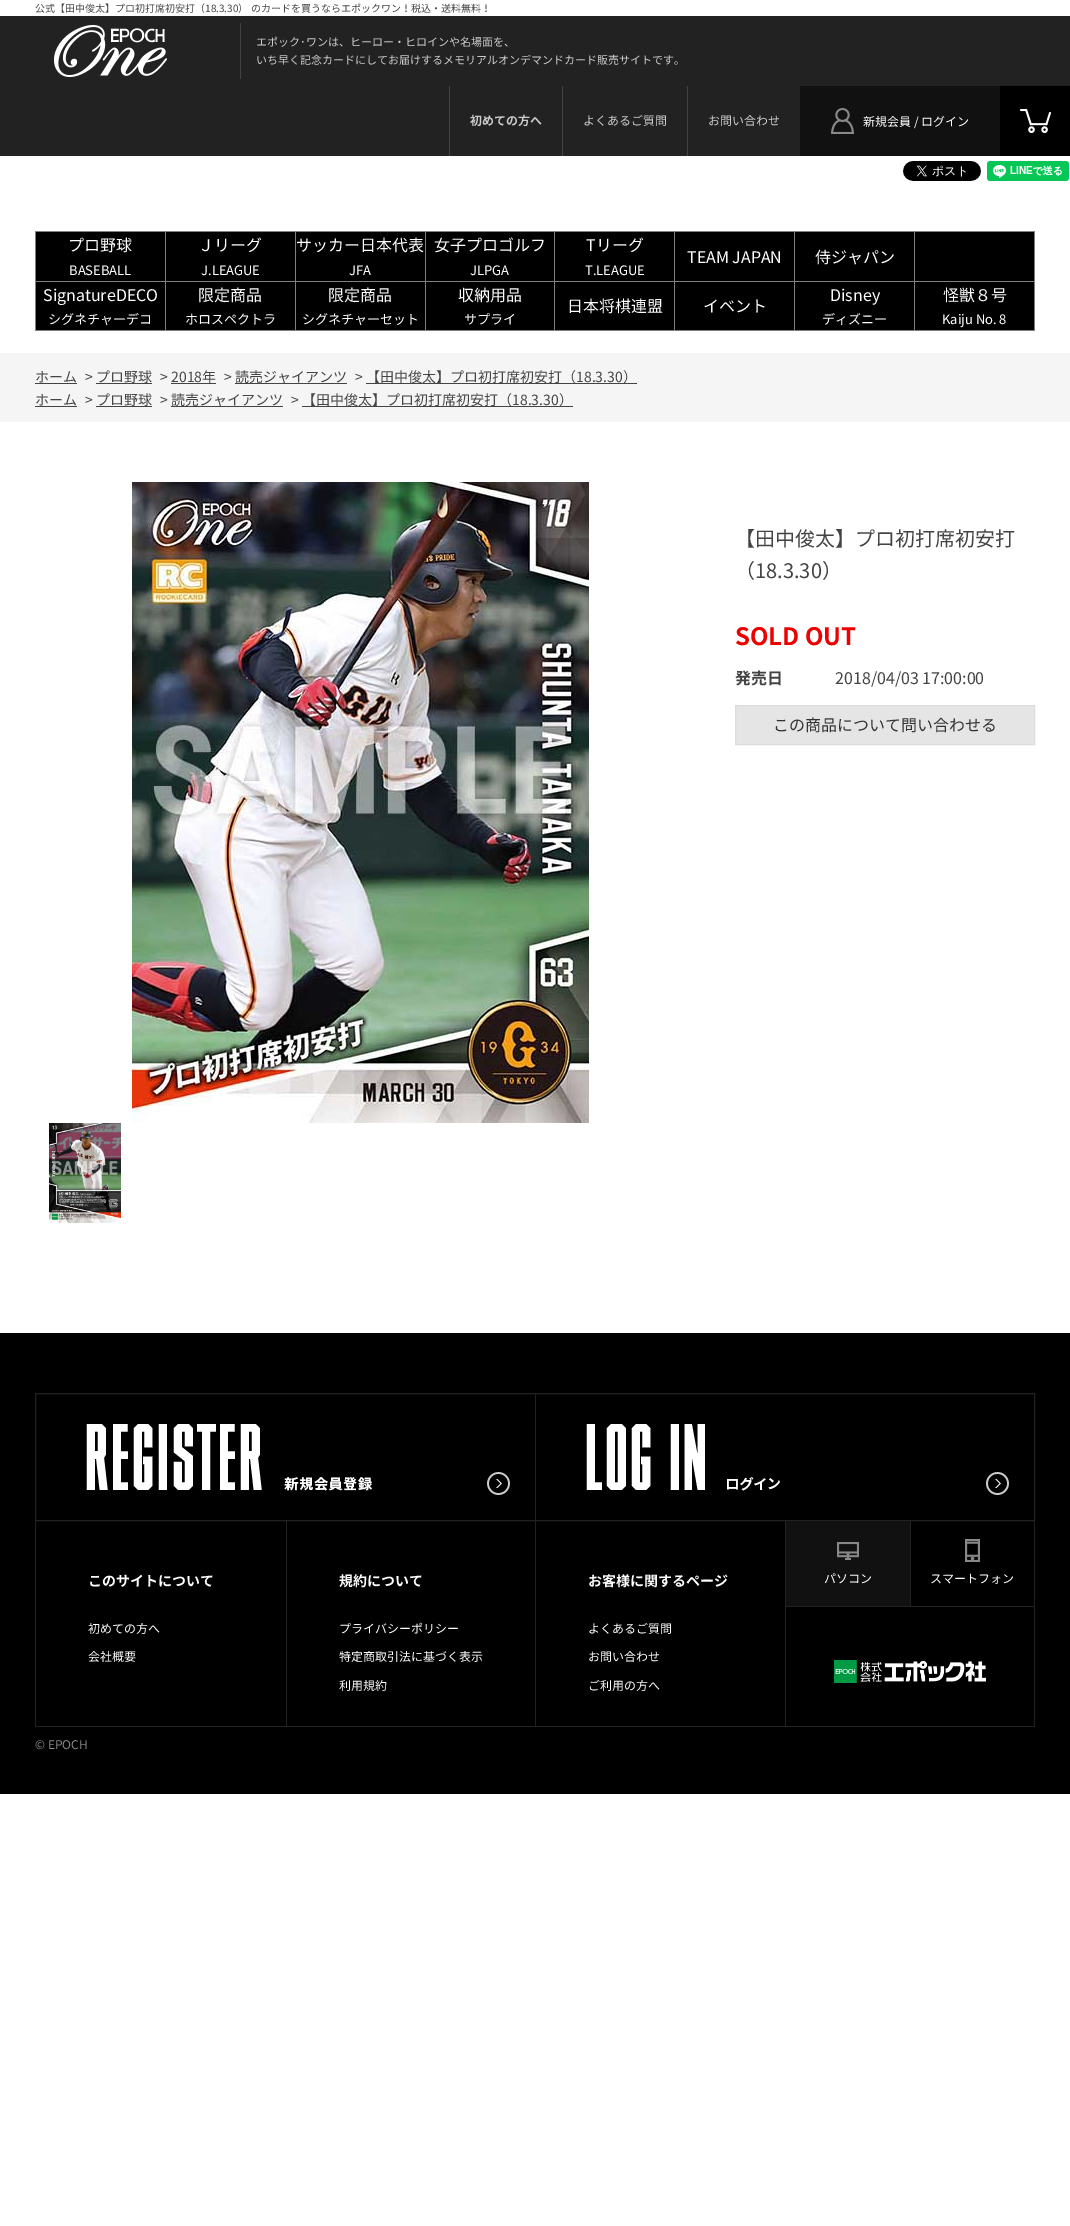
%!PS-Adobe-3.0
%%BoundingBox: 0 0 1070 2226
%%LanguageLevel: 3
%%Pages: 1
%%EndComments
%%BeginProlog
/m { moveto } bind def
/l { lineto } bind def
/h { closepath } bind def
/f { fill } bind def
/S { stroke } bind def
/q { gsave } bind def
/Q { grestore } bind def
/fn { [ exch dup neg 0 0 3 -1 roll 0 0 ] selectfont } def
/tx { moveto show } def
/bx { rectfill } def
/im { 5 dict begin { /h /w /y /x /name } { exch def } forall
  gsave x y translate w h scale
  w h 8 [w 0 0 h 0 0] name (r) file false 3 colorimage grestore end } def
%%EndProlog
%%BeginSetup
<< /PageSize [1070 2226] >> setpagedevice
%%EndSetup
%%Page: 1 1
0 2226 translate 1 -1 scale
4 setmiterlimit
1 setgray
0 0 1070 2226 bx
/NotoSansJP-Regular 10 fn
0.267 setgray
(公式【田中俊太】プロ初打席初安打（18.3.30） のカードを買うならエポックワン！税込・送料無料！) 35 12 tx
0.133 setgray
0 16 1070 140 bx
(image0.raw) 54 25 113 52 im
0.267 setgray
240 23 1 56 bx
/NotoSansJP-Regular 11 fn
0.8 setgray
(エポック) 256 46 tx
/IPAPGothic-Regular 11 fn
(･) 300 46 tx
/NotoSansJP-Regular 11 fn
(ワンは、ヒーロー・ヒロインや名場面を、) 306 46 tx
(いち早く記念カードにしてお届けするメモリアルオンデマンドカード販売サイトです。) 256 64 tx
0.267 setgray
449 86 1 70 bx
/NotoSansJP-Bold 12 fn
0.8 setgray
(初めての方へ) 470 125 tx
0.267 setgray
562 86 1 70 bx
/NotoSansJP-Regular 12 fn
0.8 setgray
(よくあるご質問) 583 125 tx
0.267 setgray
687 86 1 70 bx
0.8 setgray
(お問い合わせ) 708 125 tx
0.067 setgray
800 86 200 70 bx
(image1.raw) 831 108 23 26 im
1 setgray
(新規会員 / ログイン) 863 126 tx
0 setgray
1000 86 70 70 bx
(image2.raw) 1020 109 31 24 im
(image3.raw) 903 161 78 20 im
(image4.raw) 987 161 82 20 im
0.502 setgray
35 231 1000 1 bx
1034 231 1 100 bx
35 330 1000 1 bx
35 231 1 100 bx
0 setgray
36 232 129 49 bx
/NotoSansJP-Regular 16 fn
1 setgray
(プロ野球) 68 251 tx
/NotoSansJP-Regular 13 fn
(BASEBALL) 69 275 tx
0 setgray
166 232 129 49 bx
0.502 setgray
914 281 121 1 bx
914 281 1 50 bx
794 281 121 1 bx
794 281 1 50 bx
674 281 121 1 bx
674 281 1 50 bx
554 281 121 1 bx
554 281 1 50 bx
425 281 130 1 bx
425 281 1 50 bx
295 281 131 1 bx
295 281 1 50 bx
165 281 131 1 bx
165 281 1 50 bx
35 281 131 1 bx
165 231 1 51 bx
/NotoSansJP-Regular 16 fn
1 setgray
(Ｊリーグ) 198 251 tx
/NotoSansJP-Regular 13 fn
(J.LEAGUE) 201 275 tx
0 setgray
296 232 129 49 bx
0.502 setgray
295 231 1 51 bx
/NotoSansJP-Regular 16 fn
1 setgray
(サッカー日本代表) 296 251 tx
/NotoSansJP-Regular 13 fn
(JFA) 349 275 tx
0 setgray
426 232 128 49 bx
0.502 setgray
425 231 1 51 bx
/NotoSansJP-Regular 16 fn
1 setgray
(女子プロゴルフ) 434 251 tx
/NotoSansJP-Regular 13 fn
(JLPGA) 470 275 tx
0 setgray
555 232 119 49 bx
0.502 setgray
554 231 1 51 bx
/NotoSansJP-Regular 16 fn
1 setgray
(Tリーグ) 586 251 tx
/NotoSansJP-Regular 13 fn
(T.LEAGUE) 585 275 tx
0 setgray
675 232 119 49 bx
0.502 setgray
674 231 1 51 bx
/NotoSansJP-Regular 16 fn
1 setgray
(TEAM JAPAN) 687 263 tx
0 setgray
795 232 119 49 bx
0.502 setgray
794 231 1 51 bx
1 setgray
(侍ジャパン) 815 263 tx
0 setgray
915 232 119 49 bx
0.502 setgray
914 231 1 51 bx
0 setgray
36 282 129 48 bx
1 setgray
(SignatureDECO) 43 301 tx
/NotoSansJP-Regular 13 fn
(シグネチャーデコ) 48 324 tx
0 setgray
166 282 129 48 bx
/NotoSansJP-Regular 16 fn
1 setgray
(限定商品) 198 301 tx
/NotoSansJP-Regular 13 fn
(ホロスペクトラ) 185 324 tx
0 setgray
296 282 129 48 bx
/NotoSansJP-Regular 16 fn
1 setgray
(限定商品) 328 301 tx
/NotoSansJP-Regular 13 fn
(シグネチャーセット) 302 324 tx
0 setgray
426 282 128 48 bx
/NotoSansJP-Regular 16 fn
1 setgray
(収納用品) 458 301 tx
/NotoSansJP-Regular 13 fn
(サプライ) 464 324 tx
0 setgray
555 282 119 48 bx
/NotoSansJP-Regular 16 fn
1 setgray
(日本将棋連盟) 567 312 tx
0 setgray
675 282 119 48 bx
1 setgray
(イベント) 703 312 tx
0 setgray
795 282 119 48 bx
1 setgray
(Disney) 830 301 tx
/NotoSansJP-Regular 13 fn
(ディズニー) 822 324 tx
0 setgray
915 282 119 48 bx
/NotoSansJP-Regular 16 fn
1 setgray
(怪獣８号) 943 301 tx
/NotoSansJP-Regular 13 fn
(Kaiju No. 8) 942 324 tx
0.961 setgray
0 353 1070 69 bx
/NotoSansJP-Regular 14 fn
0.267 setgray
(ホーム) 35 382 tx
35 383 42 1 bx
(>) 85 382 tx
96 383 56 1 bx
(プロ野球) 96 382 tx
(>) 160 382 tx
171 383 45 1 bx
(2018年) 171 382 tx
(>) 224 382 tx
235 383 112 1 bx
(読売ジャイアンツ) 235 382 tx
(>) 355 382 tx
366 383 271 1 bx
(【田中俊太】プロ初打席初安打（18.3.30）) 366 382 tx
(ホーム) 35 405 tx
35 406 42 1 bx
(>) 85 405 tx
96 406 56 1 bx
(プロ野球) 96 405 tx
(>) 160 405 tx
171 406 112 1 bx
(読売ジャイアンツ) 171 405 tx
(>) 291 405 tx
302 406 271 1 bx
(【田中俊太】プロ初打席初安打（18.3.30）) 302 405 tx
(image5.raw) 132 482 457 641 im
(image6.raw) 49 1123 72 100 im
/NotoSansJP-Regular 20 fn
(【田中俊太】プロ初打席初安打) 735 546 tx
(（18.3.30）) 735 578 tx
/NotoSansJP-Bold 24 fn
0.925 0 0 setrgbcolor
(SOLD OUT) 735 645 tx
/NotoSansJP-Bold 16 fn
0.267 setgray
(発売日) 735 684 tx
/NotoSansJP-Regular 16 fn
(2018/04/03 17:00:00) 835 684 tx
0.898 setgray
735.5 705.5 m 1034.5 705.5 l 1034.5 744.5 l 735.5 744.5 l h q f Q
0.863 setgray
S
0.2 setgray
(この商品について問い合わせる) 773 731 tx
0 setgray
0 1333 1070 461 bx
0.133 setgray
35.5 1393.5 999 127 rectstroke
(image7.raw) 86 1424 424 71 im
535 1394 1 126 bx
(image8.raw) 586 1424 423 71 im
1034 1521 1 206 bx
35 1726 1000 1 bx
35 1521 1 206 bx
/NotoSansJP-Bold 14 fn
1 setgray
(このサイトについて) 88 1586 tx
/NotoSansJP-Regular 12 fn
(初めての方へ) 88 1633 tx
(会社概要) 88 1661 tx
0.133 setgray
286 1521 1 205 bx
/NotoSansJP-Bold 14 fn
1 setgray
(規約について) 339 1586 tx
/NotoSansJP-Regular 12 fn
(プライバシーポリシー) 339 1633 tx
(特定商取引法に基づく表示) 339 1661 tx
(利用規約) 339 1690 tx
0.133 setgray
535 1521 1 205 bx
/NotoSansJP-Bold 14 fn
1 setgray
(お客様に関するページ) 588 1586 tx
/NotoSansJP-Regular 12 fn
(よくあるご質問) 588 1633 tx
(お問い合わせ) 588 1661 tx
(ご利用の方へ) 588 1690 tx
0.133 setgray
785 1521 1 205 bx
786 1606 248 1 bx
0.067 setgray
786 1521 124 85 bx
(image9.raw) 837 1542 22 18 im
1 setgray
(パソコン) 824 1583 tx
0.133 setgray
910 1521 1 85 bx
(image10.raw) 965 1539 15 23 im
1 setgray
(スマートフォン) 930 1583 tx
(image11.raw) 834 1660 152 23 im
0.533 setgray
(© EPOCH) 35 1749 tx
showpage
%%EOF
